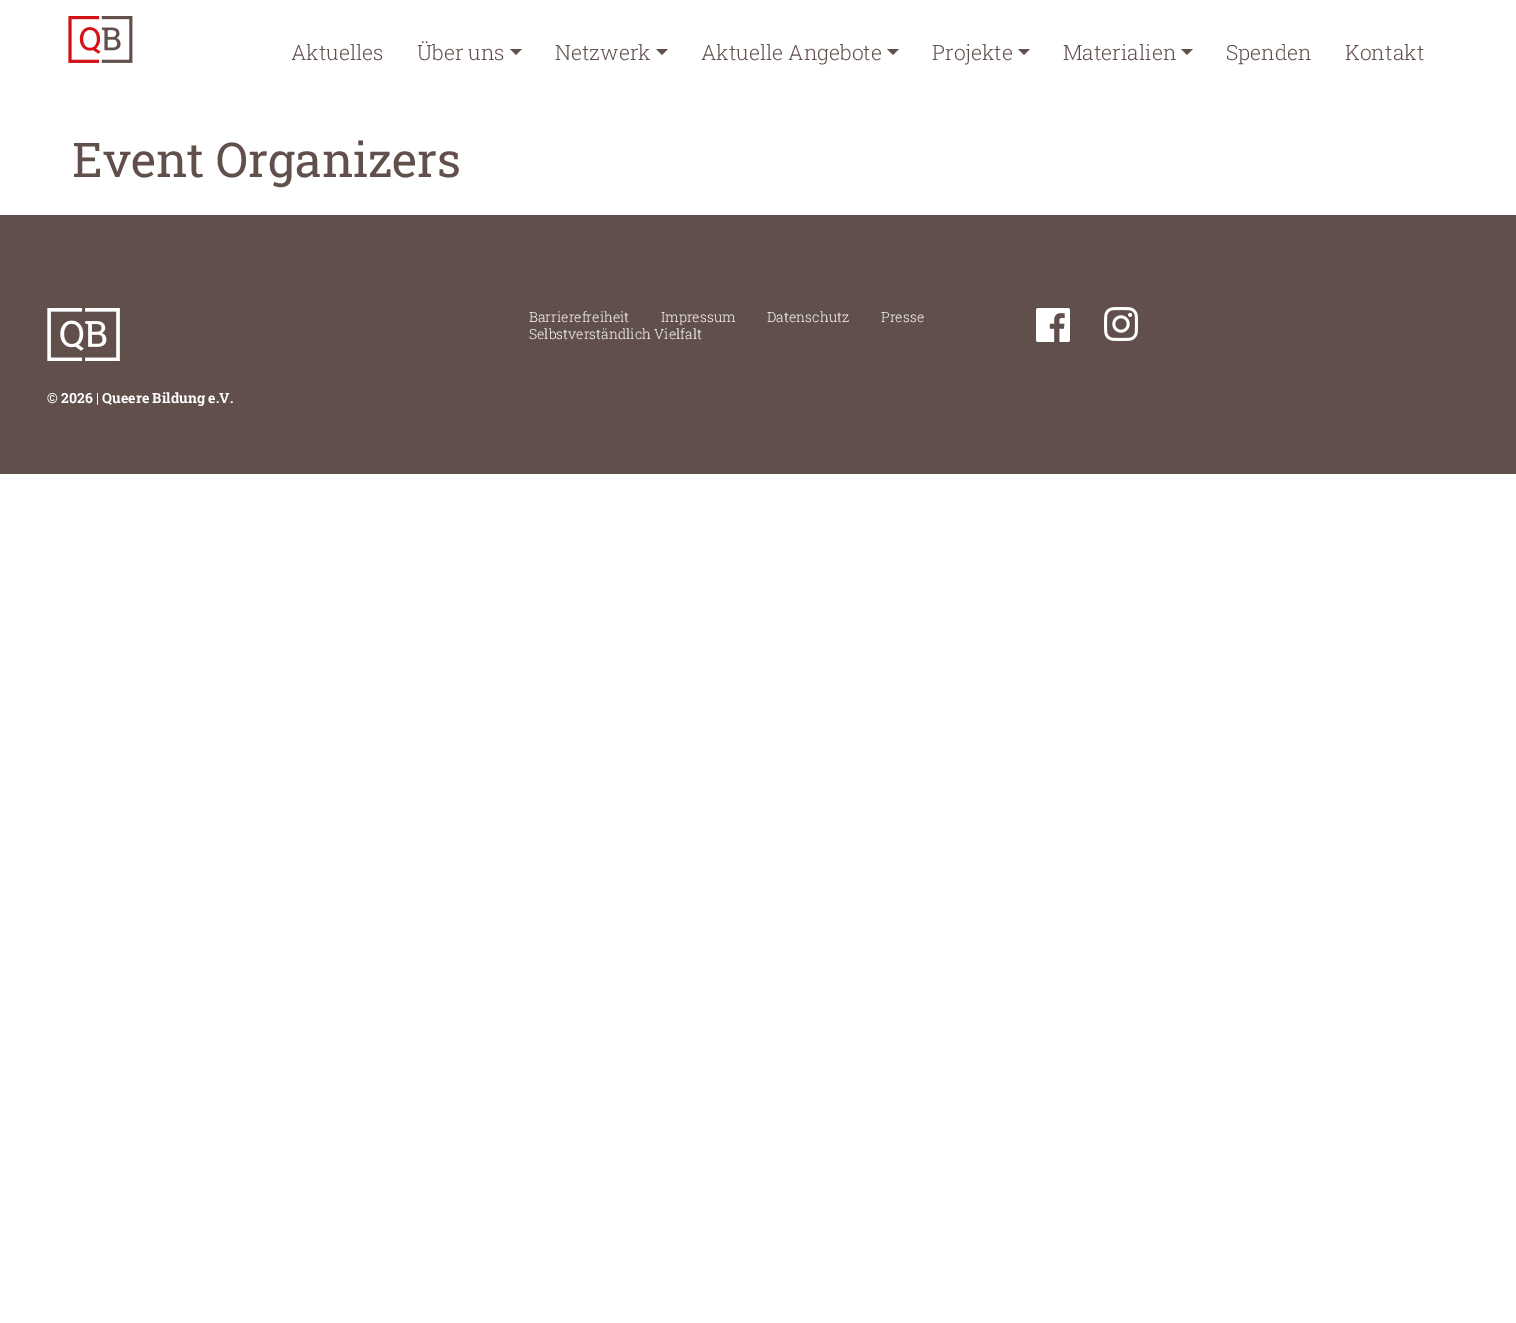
%!PS-Adobe-3.0
%%BoundingBox: 0 0 1516 1323
%%LanguageLevel: 3
%%Pages: 1
%%EndComments
%%BeginProlog
/m { moveto } bind def
/l { lineto } bind def
/h { closepath } bind def
/f { fill } bind def
/fn { [ exch dup neg 0 0 3 -1 roll 0 0 ] selectfont } def
/tx { moveto show } def
/bx { rectfill } def
/im { 5 dict begin { /h /w /y /x /name } { exch def } forall
  gsave x y translate w h scale
  w h 8 [w 0 0 h 0 0] name (r) file false 3 colorimage grestore end } def
%%EndProlog
%%BeginSetup
<< /PageSize [1516 1323] >> setpagedevice
%%EndSetup
%%Page: 1 1
0 1323 translate 1 -1 scale
4 setmiterlimit
1 setgray
0 0 1516 1323 bx
(image0.raw) 68 16 65 47 im
/RobotoSlab-Light 21 fn
0.38 0.31 0.298 setrgbcolor
(Aktuelles) 291 60 tx
(Über uns) 417 60 tx
510 49 m 522 49 l 516 55 l h f
(Netzwerk) 555 60 tx
656 49 m 668 49 l 662 55 l h f
(Aktuelle Angebote) 701 60 tx
887 49 m 899 49 l 893 55 l h f
(Projekte) 932 60 tx
1018 49 m 1030 49 l 1024 55 l h f
(Materialien) 1063 60 tx
1181 49 m 1193 49 l 1187 55 l h f
(Spenden) 1226 60 tx
(Kontakt) 1345 60 tx
/RobotoSlab-Regular 48 fn
(Event Organizers) 72 177 tx
0 215 1516 259 bx
/RobotoSlab-Light 14 fn
1 setgray
(Barrierefreiheit) 529 322 tx
(Impressum) 661 322 tx
(Datenschutz) 767 322 tx
(Presse) 881 322 tx
(Selbstverständlich Vielfalt) 529 339 tx
(image1.raw) 1036 308 34 34 im
(image2.raw) 1104 307 34 34 im
(image3.raw) 47 308 73 53 im
/RobotoSlab-Bold 14 fn
(© 2026 | Queere Bildung e.V.) 47 403 tx
showpage
%%EOF
